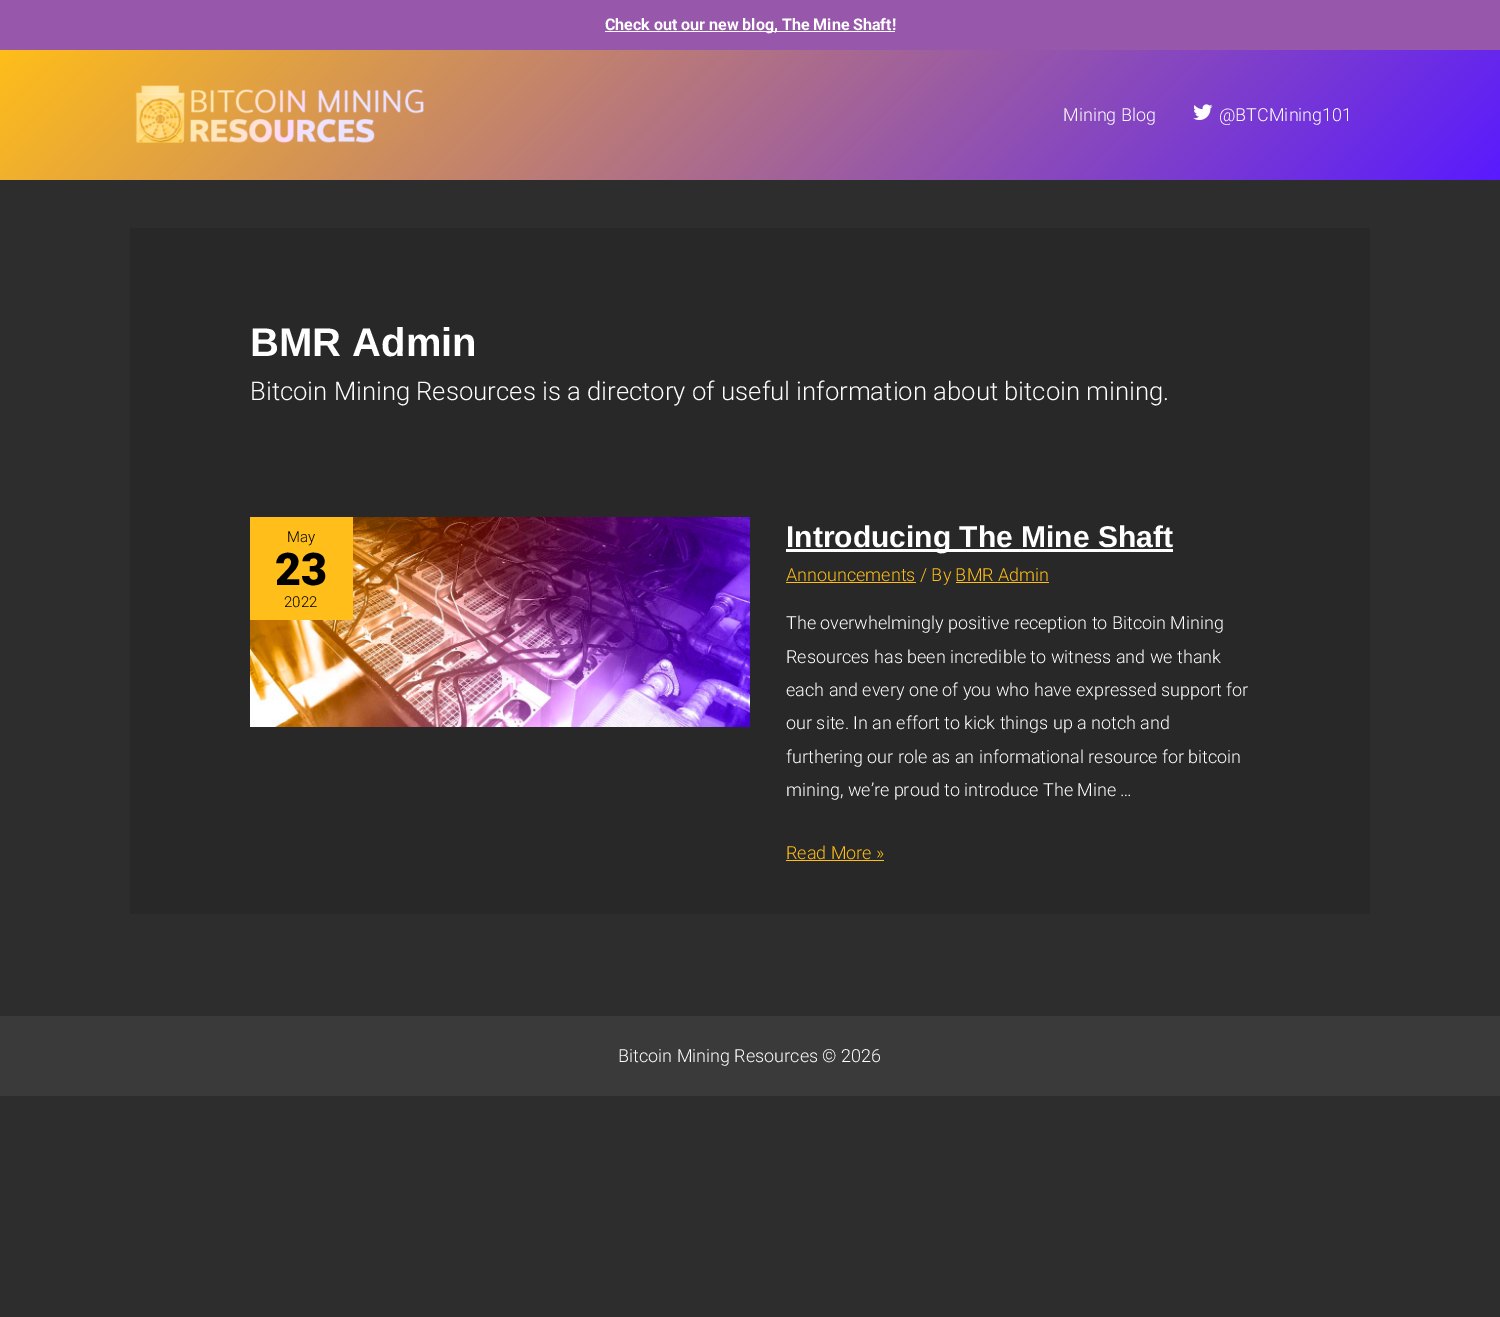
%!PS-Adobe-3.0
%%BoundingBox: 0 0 1500 1317
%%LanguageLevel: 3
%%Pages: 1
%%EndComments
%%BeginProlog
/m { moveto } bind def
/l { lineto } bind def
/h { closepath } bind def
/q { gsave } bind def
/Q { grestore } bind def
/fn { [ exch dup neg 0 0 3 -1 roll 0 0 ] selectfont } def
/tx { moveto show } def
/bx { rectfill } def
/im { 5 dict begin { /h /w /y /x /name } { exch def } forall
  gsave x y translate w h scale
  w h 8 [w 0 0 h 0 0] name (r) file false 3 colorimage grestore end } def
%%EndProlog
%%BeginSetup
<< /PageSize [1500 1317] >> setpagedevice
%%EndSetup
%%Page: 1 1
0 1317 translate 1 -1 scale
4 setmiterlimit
0.176 setgray
0 0 1500 1317 bx
0.592 0.341 0.667 setrgbcolor
0 0 1500 50 bx
1 setgray
605 31 290 1 bx
/Roboto-Bold 16 fn
(Check out our new blog, The Mine Shaft!) 605 30 tx
q 0 50 m 1500 50 l 1500 180 l 0 180 l h clip newpath
<< /ShadingType 2 /ColorSpace /DeviceRGB /Coords [342 -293 1158 523] /Extend [true true] /Function << /FunctionType 2 /Domain [0 1] /C0 [1 0.745 0.098] /C1 [0.349 0.102 1] /N 1 >> >> shfill Q
(image0.raw) 135 85 289 58 im
/Roboto-Light 18 fn
(Mining Blog) 1063 121 tx
(image1.raw) 1193 104 20 17 im
(@BTCMining101) 1219 121 tx
0.157 setgray
130 228 1240 686 bx
/LiberationSans-Bold 40 fn
1 setgray
(BMR Admin) 250 356 tx
/Roboto-Light 25.7 fn
(Bitcoin Mining Resources is a directory of useful information about bitcoin mining.) 250 400 tx
(image2.raw) 250 517 500 210 im
1 0.745 0.098 setrgbcolor
250 517 103 103 bx
/Roboto-Light 15 fn
0 setgray
(May) 287 542 tx
/Roboto-Black 45 fn
(23) 275 585 tx
/Roboto-Light 15 fn
(2022) 284 607 tx
1 setgray
786 549 387 3 bx
/LiberationSans-Bold 30 fn
(Introducing The Mine Shaft) 786 547 tx
1 0.745 0.098 setrgbcolor
786 582 130 1 bx
/Roboto-Light 18 fn
(Announcements / By BMR Admin) 786 581 tx
956 582 93 1 bx
1 setgray
(The overwhelmingly positive reception to Bitcoin Mining) 786 629 tx
(Resources has been incredible to witness and we thank) 786 663 tx
(each and every one of you who have expressed support for) 786 696 tx
(our site. In an effort to kick things up a notch and) 786 729 tx
(furthering our role as an informational resource for bitcoin) 786 763 tx
(mining, we’re proud to introduce The Mine …) 786 796 tx
1 0.745 0.098 setrgbcolor
(Read More ») 786 859 tx
786 860 98 1 bx
0.227 setgray
0 1016 1500 80 bx
1 setgray
(Bitcoin Mining Resources © 2026) 618 1062 tx
showpage
%%EOF
